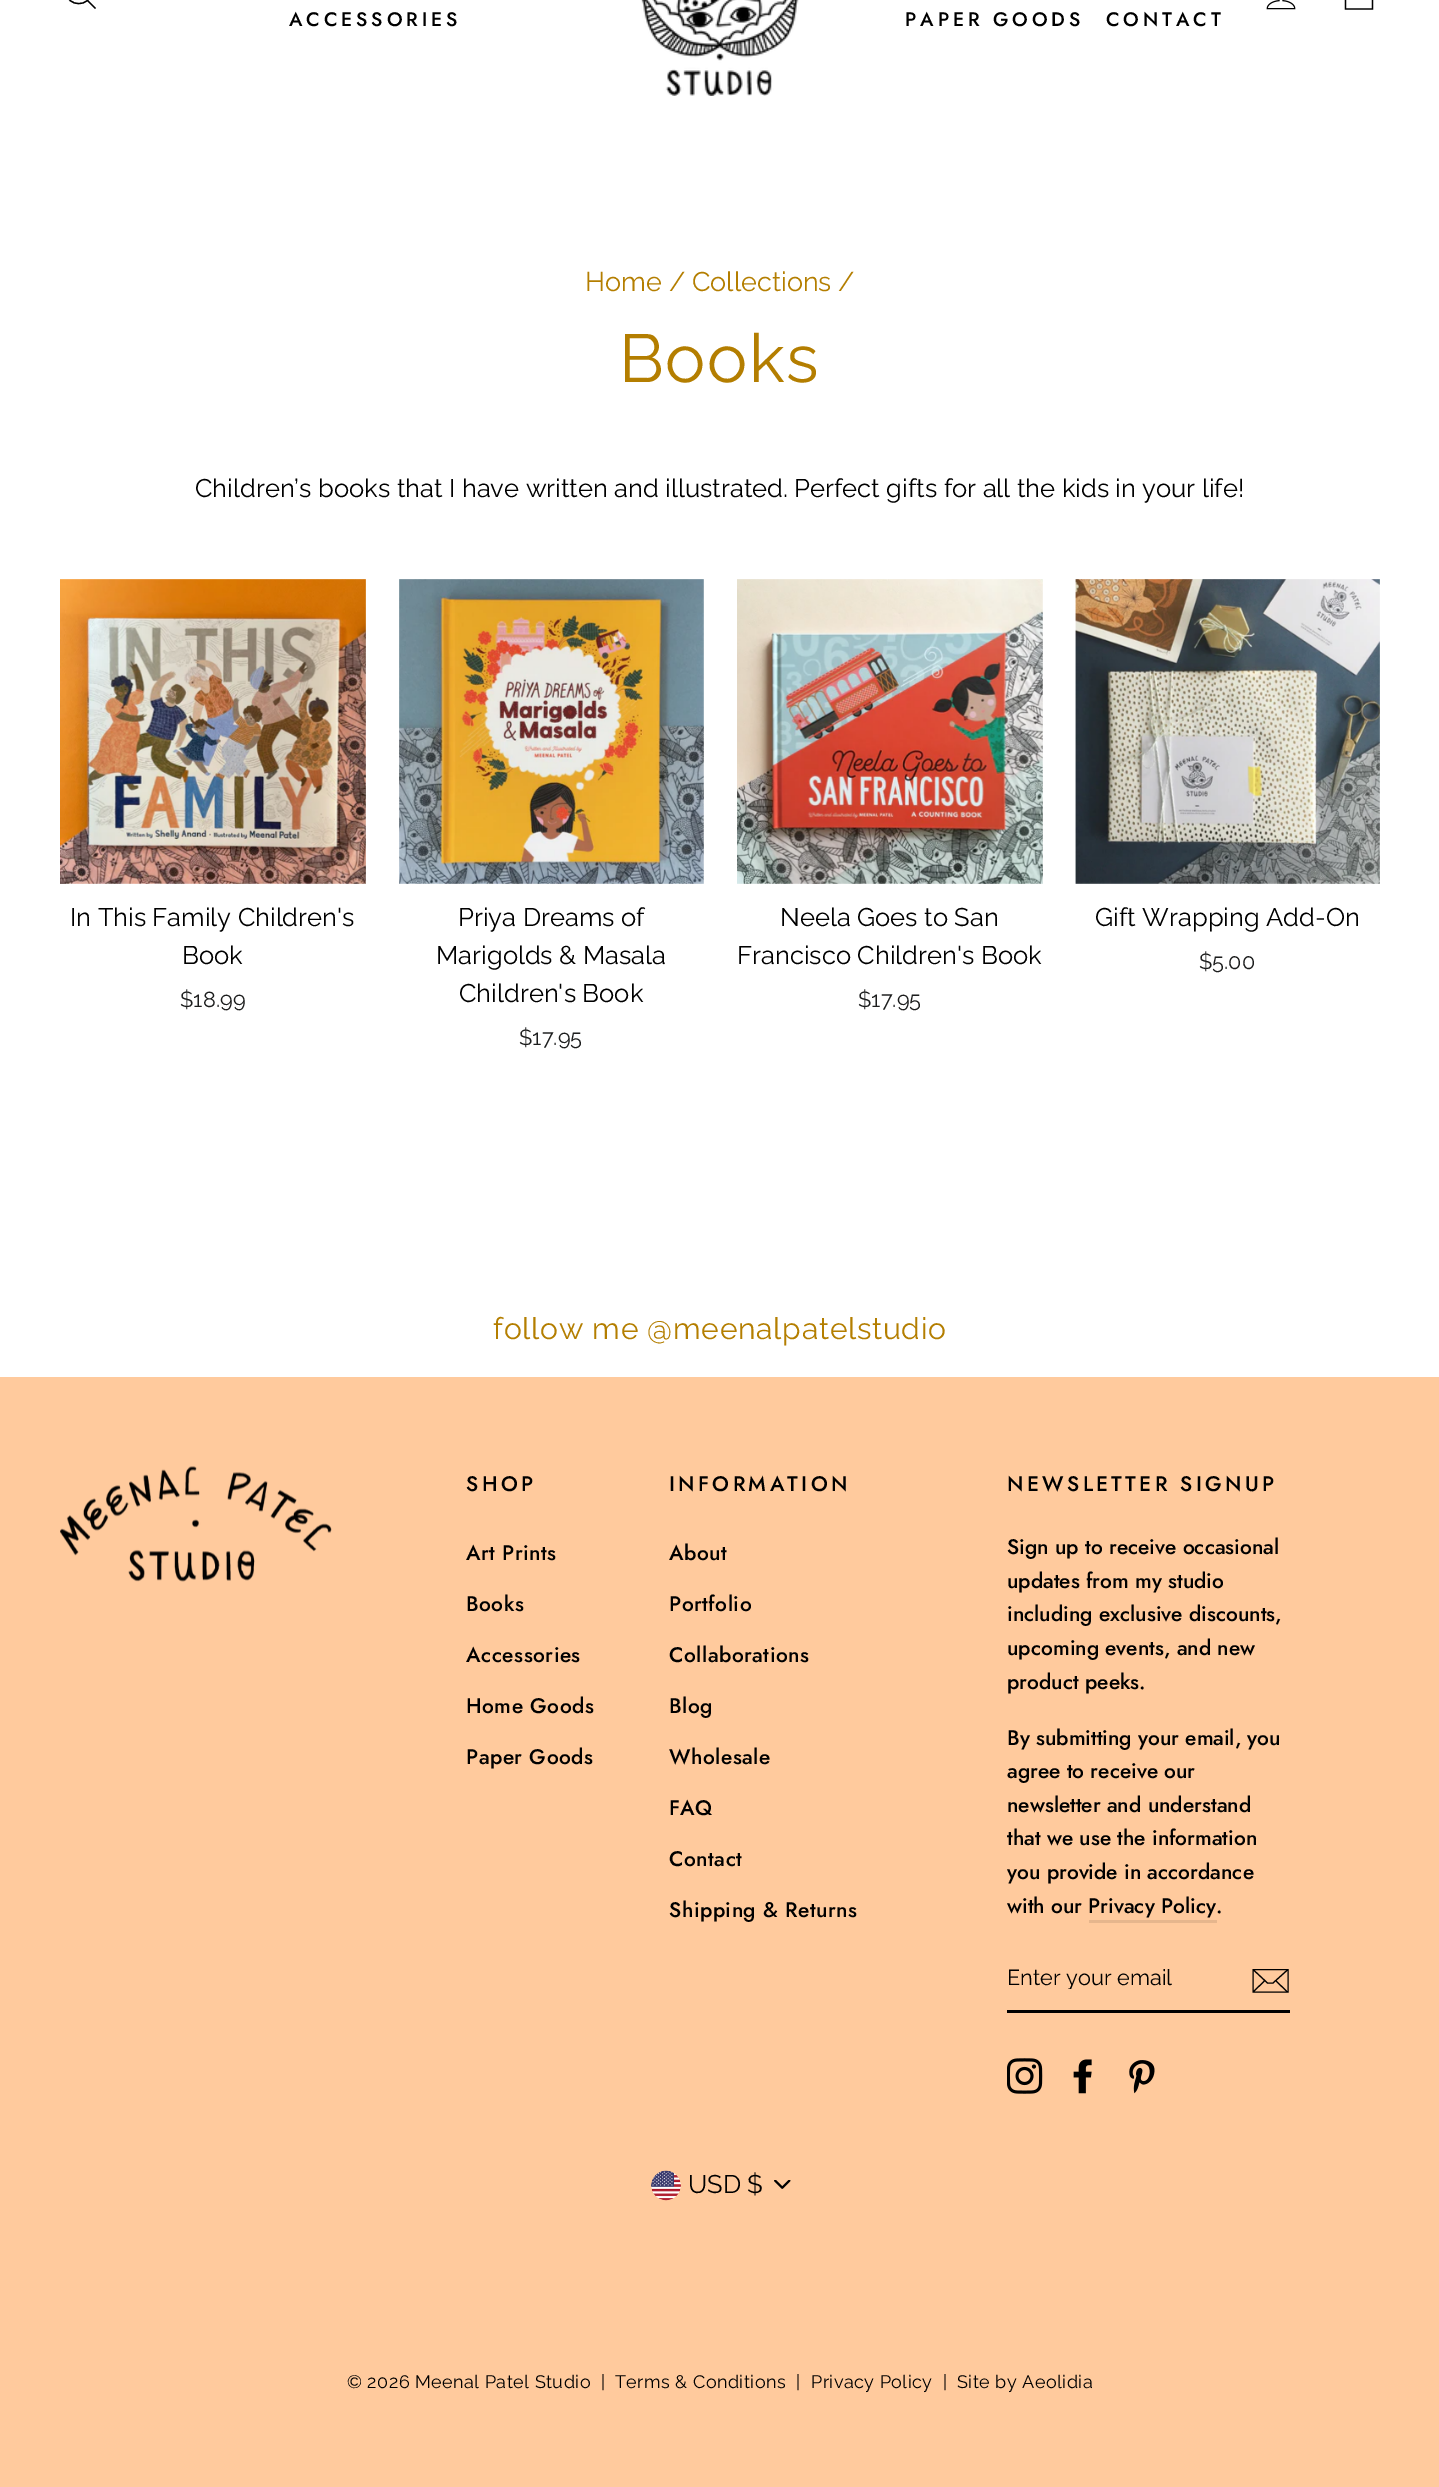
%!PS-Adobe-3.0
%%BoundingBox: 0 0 1439 2487
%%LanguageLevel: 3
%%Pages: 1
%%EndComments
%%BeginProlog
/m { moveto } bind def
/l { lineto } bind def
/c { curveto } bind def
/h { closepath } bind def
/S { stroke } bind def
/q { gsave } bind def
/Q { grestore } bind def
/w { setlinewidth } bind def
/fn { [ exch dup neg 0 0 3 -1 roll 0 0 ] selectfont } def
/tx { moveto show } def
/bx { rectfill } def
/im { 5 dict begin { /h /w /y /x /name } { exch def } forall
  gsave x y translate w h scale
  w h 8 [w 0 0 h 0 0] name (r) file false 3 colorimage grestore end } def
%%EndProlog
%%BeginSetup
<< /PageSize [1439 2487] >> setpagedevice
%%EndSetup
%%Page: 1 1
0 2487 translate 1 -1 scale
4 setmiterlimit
1 setgray
0 0 1439 2487 bx
0 setgray
1.3 w
91 -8 m 91 7.5 66.5 7.5 66.5 -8 c 66.5 -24 91 -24 91 -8 c h 95.5 8.5 m 87.5 0.5 l S
(image0.raw) 1266 0 30 10 im
1345.5 -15.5 m 1372.5 -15.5 l 1372.5 9 l 1345.5 9 l h S
/Jost-Medium 19.5 fn
289 26 m 3.9 0 (ACCESSORIES) ashow
(image1.raw) 641 0 158 96 im
905 26 m 3.9 0 (PAPER GOODS) ashow
1106 26 m 3.9 0 (CONTACT) ashow
/Raleway-Regular 27 fn
0.706 0.494 0 setrgbcolor
(Home / Collections /) 585 291 tx
/Raleway-Regular 67.5 fn
619 382 m 1.5 0 (Books) ashow
/Raleway-Regular 25.5 fn
0 setgray
(Children’s books that I have written and illustrated. Perfect gifts for all the kids in your life!) 195 497 tx
(image2.raw) 60 579 306 305 im
(In This Family Children's) 70 926 tx
(Book) 182 964 tx
/Raleway-Regular 21.75 fn
0.11 0.114 0.114 setrgbcolor
($18.99) 180 1007 tx
(image3.raw) 399 579 305 305 im
/Raleway-Regular 25.5 fn
0 setgray
(Priya Dreams of) 458 926 tx
(Marigolds & Masala) 436 964 tx
(Children's Book) 459 1002 tx
/Raleway-Regular 21.75 fn
0.11 0.114 0.114 setrgbcolor
($17.95) 519 1045 tx
(image4.raw) 737 579 306 305 im
/Raleway-Regular 25.5 fn
0 setgray
(Neela Goes to San) 780 926 tx
(Francisco Children's Book) 737 964 tx
/Raleway-Regular 21.75 fn
0.11 0.114 0.114 setrgbcolor
($17.95) 858 1007 tx
(image5.raw) 1075 579 305 305 im
/Raleway-Regular 25.5 fn
0 setgray
(Gift Wrapping Add-On) 1095 926 tx
/Raleway-Regular 21.75 fn
0.11 0.114 0.114 setrgbcolor
($5.00) 1199 969 tx
/Raleway-Regular 30 fn
0.706 0.494 0 setrgbcolor
493 1339 m 0.75 0 (follow me @meenalpatelstudio) ashow
1 0.792 0.616 setrgbcolor
0 1377 1439 1110 bx
(image6.raw) 60 1466 272 116 im
/Jost-Medium 21 fn
0 setgray
466 1491 m 3.4 0 (SHOP) ashow
466 1560 m 0.5 0 (Art Prints) ashow
466 1611 m 0.5 0 (Books) ashow
466 1662 m 0.5 0 (Accessories) ashow
466 1713 m 0.5 0 (Home Goods) ashow
466 1764 m 0.5 0 (Paper Goods) ashow
669 1491 m 3.4 0 (INFORMATION) ashow
669 1560 m 0.5 0 (About) ashow
669 1611 m 0.5 0 (Portfolio) ashow
669 1662 m 0.5 0 (Collaborations) ashow
669 1713 m 0.5 0 (Blog) ashow
669 1764 m 0.5 0 (Wholesale) ashow
669 1815 m 0.5 0 (FAQ) ashow
669 1866 m 0.5 0 (Contact) ashow
669 1917 m 0.5 0 (Shipping & Returns) ashow
1007 1491 m 3.4 0 (NEWSLETTER SIGNUP) ashow
(Sign up to receive occasional) 1007 1554 tx
(updates from my studio) 1007 1588 tx
(including exclusive discounts,) 1007 1621 tx
(upcoming events, and new) 1007 1655 tx
(product peeks.) 1007 1689 tx
(By submitting your email, you) 1007 1745 tx
(agree to receive our) 1007 1778 tx
(newsletter and understand) 1007 1812 tx
(that we use the information) 1007 1845 tx
(you provide in accordance) 1007 1879 tx
(with our Privacy Policy) 1007 1913 tx
(.) 1216 1913 tx
0.902 0.714 0.553 setrgbcolor
1089 1920 128 3 bx
0 setgray
1007 2010 283 3 bx
q
1007 1964 216 25 rectclip
/Raleway-Regular 21.75 fn
(Enter your email) 1007 1985 tx
Q
1.1 w
1288 1992 m 1253 1992 l 1253 1969.5 l 1288 1969.5 l h 1253 1969.5 m 1267.5 1983 l 1273 1983 l 1288 1969.5 l 1265 1980.5 m 1253.5 1991.5 l 1287.5 1992 m 1275.5 1980.5 l S
(image7.raw) 1007 2058 36 36 im
(image8.raw) 1073 2059 19 35 im
(image9.raw) 1129 2060 26 34 im
(image10.raw) 774 2180 17 9 im
(image11.raw) 651 2170 30 31 im
/Raleway-Regular 25.5 fn
(USD $) 688 2193 tx
/Raleway-Regular 18 fn
347 2388 m 0.45 0 (© 2026 Meenal Patel Studio  |) ashow
615 2388 m 0.45 0 (Terms & Conditions) ashow
796 2388 m 0.45 0 (|) ashow
811 2388 m 0.45 0 (Privacy Policy) ashow
943 2388 m 0.45 0 (|) ashow
957 2388 m 0.45 0 (Site by Aeolidia) ashow
showpage
%%EOF
